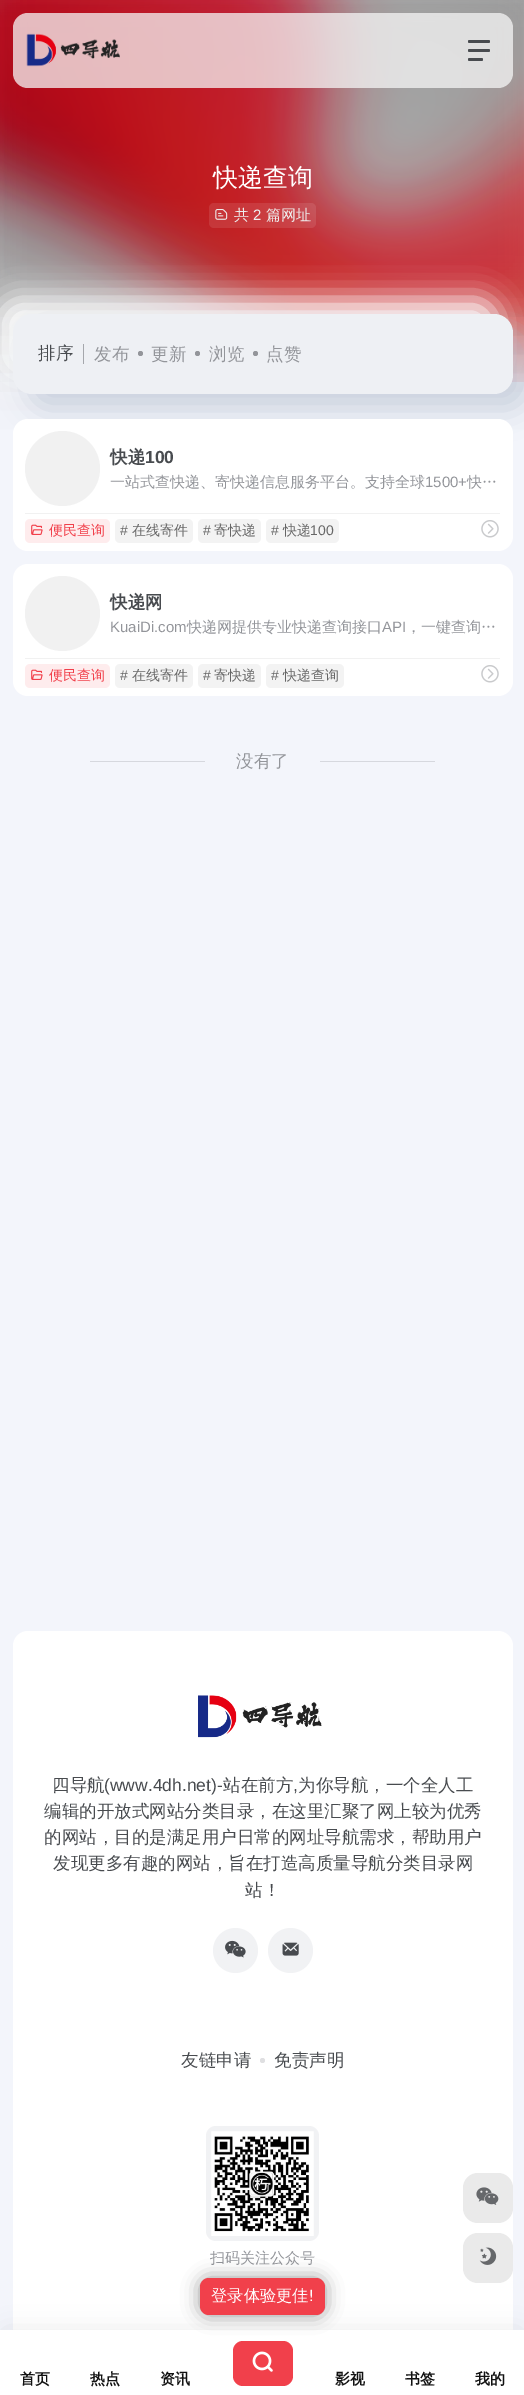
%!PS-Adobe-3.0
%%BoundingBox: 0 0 524 2395
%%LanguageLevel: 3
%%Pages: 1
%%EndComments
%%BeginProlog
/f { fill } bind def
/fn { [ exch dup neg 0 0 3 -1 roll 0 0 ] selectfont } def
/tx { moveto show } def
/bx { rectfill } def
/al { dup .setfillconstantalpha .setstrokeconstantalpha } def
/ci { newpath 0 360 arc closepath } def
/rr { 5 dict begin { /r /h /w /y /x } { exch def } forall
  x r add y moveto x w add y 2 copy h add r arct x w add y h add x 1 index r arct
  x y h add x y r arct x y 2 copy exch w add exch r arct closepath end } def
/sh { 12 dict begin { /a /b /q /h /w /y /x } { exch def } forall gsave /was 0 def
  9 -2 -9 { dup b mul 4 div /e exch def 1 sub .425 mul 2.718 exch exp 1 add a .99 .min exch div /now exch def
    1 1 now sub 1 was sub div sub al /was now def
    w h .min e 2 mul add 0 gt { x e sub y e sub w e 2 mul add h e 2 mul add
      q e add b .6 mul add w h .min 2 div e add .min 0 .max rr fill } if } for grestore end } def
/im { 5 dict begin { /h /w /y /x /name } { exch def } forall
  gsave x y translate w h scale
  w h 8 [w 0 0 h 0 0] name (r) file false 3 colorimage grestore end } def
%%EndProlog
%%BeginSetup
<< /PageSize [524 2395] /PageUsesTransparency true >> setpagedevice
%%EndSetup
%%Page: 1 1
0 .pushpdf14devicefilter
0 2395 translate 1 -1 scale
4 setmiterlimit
0.953 0.961 0.984 setrgbcolor
0 0 524 2395 bx
(image1.raw) 0 0 524 382 im
0 setgray
-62 -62 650 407 0 37.5 0.2 sh
0.75 al
0.961 setgray
13 13 500 75 15 rr f
1 al
(image0.raw) 26 33 94 34 im
0.282 0.294 0.31 setrgbcolor
468 40 22 3 1.5 rr f
468 49 22 3 1.5 rr f
468 58 15 3 1.5 rr f
/WenQuanYiZenHei-Medium 25 fn
1 setgray
(快递查询) 213 186 tx
0.1 al
209 203 107 25 5 rr f
1 al
(image2.raw) 215 209 13 11 im
/WenQuanYiZenHei-Medium 15 fn
0.933 setgray
(共) 234 220 tx
/LiberationSans-Regular 15 fn
(2) 253 220 tx
/WenQuanYiZenHei-Medium 15 fn
(篇网址) 266 220 tx
1 setgray
-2 299 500 80 19 15 1 sh
0.639 0.694 0.776 setrgbcolor
28 329 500 80 19 15 0.5 sh
0.933 0.941 0.957 setrgbcolor
13 314 500 80 19 rr f
/WenQuanYiZenHei-Medium 17.5 fn
0.282 0.294 0.31 setrgbcolor
(排序) 38 359 tx
0.647 0.655 0.675 setrgbcolor
83 344 1 20 bx
0.576 0.584 0.604 setrgbcolor
(发布) 94 360 tx
140.5 353.5 2.5 ci f
(更新) 151 360 tx
197.5 353.5 2.5 ci f
(浏览) 209 360 tx
255.5 353.5 2.5 ci f
(点赞) 266 360 tx
1 setgray
13 419 500 132 15 rr f
0.945 setgray
62.5 468.5 37.5 ci f
/WenQuanYiZenHei-Bold 17.5 fn
0.282 0.294 0.31 setrgbcolor
(快递) 110 463 tx
/LiberationSans-Bold 17.5 fn
(100) 145 463 tx
/WenQuanYiZenHei-Medium 15 fn
0.576 0.584 0.604 setrgbcolor
(一站式查快递、寄快递信息服务平台。支持全球) 110 487 tx
/LiberationSans-Regular 15 fn
(1500+) 425 487 tx
/WenQuanYiZenHei-Medium 15 fn
(快…) 467 487 tx
0.945 setgray
25 513 475 1 bx
0.996 0.925 0.929 setrgbcolor
25 519 85 24 5 rr f
(image3.raw) 31 524 12 11 im
/WenQuanYiZenHei-Medium 14 fn
0.945 0.251 0.294 setrgbcolor
(便民查询) 49 535 tx
0.953 setgray
115 519 78 24 5 rr f
/LiberationSans-Regular 14 fn
0.4 setgray
(#) 120 535 tx
/WenQuanYiZenHei-Medium 14 fn
(在线寄件) 132 535 tx
0.953 setgray
198 519 63 24 5 rr f
/LiberationSans-Regular 14 fn
0.4 setgray
(#) 203 535 tx
/WenQuanYiZenHei-Medium 14 fn
(寄快递) 214 535 tx
0.953 setgray
266 519 73 24 5 rr f
/LiberationSans-Regular 14 fn
0.4 setgray
(#) 271 535 tx
/WenQuanYiZenHei-Medium 14 fn
(快递) 283 535 tx
/LiberationSans-Regular 14 fn
(100) 310 535 tx
(image4.raw) 481 520 18 18 im
1 setgray
13 564 500 132 15 rr f
0.945 setgray
62.5 613.5 37.5 ci f
/WenQuanYiZenHei-Bold 17.5 fn
0.282 0.294 0.31 setrgbcolor
(快递网) 110 608 tx
/LiberationSans-Regular 15 fn
0.576 0.584 0.604 setrgbcolor
(KuaiDi.com) 110 632 tx
/WenQuanYiZenHei-Medium 15 fn
(快递网提供专业快递查询接口) 187 632 tx
/LiberationSans-Regular 15 fn
(API) 382 632 tx
/WenQuanYiZenHei-Medium 15 fn
(，一键查询…) 406 632 tx
0.945 setgray
25 658 475 1 bx
0.996 0.925 0.929 setrgbcolor
25 664 85 24 5 rr f
(image3.raw) 31 669 12 11 im
/WenQuanYiZenHei-Medium 14 fn
0.945 0.251 0.294 setrgbcolor
(便民查询) 49 680 tx
0.953 setgray
115 664 78 24 5 rr f
/LiberationSans-Regular 14 fn
0.4 setgray
(#) 120 680 tx
/WenQuanYiZenHei-Medium 14 fn
(在线寄件) 132 680 tx
0.953 setgray
198 664 63 24 5 rr f
/LiberationSans-Regular 14 fn
0.4 setgray
(#) 203 680 tx
/WenQuanYiZenHei-Medium 14 fn
(寄快递) 214 680 tx
0.953 setgray
266 664 78 24 5 rr f
/LiberationSans-Regular 14 fn
0.4 setgray
(#) 271 680 tx
/WenQuanYiZenHei-Medium 14 fn
(快递查询) 283 680 tx
(image4.raw) 481 665 18 18 im
0.839 0.847 0.871 setrgbcolor
90 761 115 1 bx
/WenQuanYiZenHei-Medium 17.5 fn
0.576 0.584 0.604 setrgbcolor
(没有了) 236 767 tx
0.839 0.847 0.871 setrgbcolor
320 761 115 1 bx
1 setgray
13 1631 500 752 15 rr f
(image5.raw) 198 1695 124 43 im
0.282 0.294 0.31 setrgbcolor
(四导航) 52 1791 tx
/LiberationSans-Regular 17.5 fn
(\(www.4dh.net\)-) 104 1791 tx
/WenQuanYiZenHei-Medium 17.5 fn
(站在前方) 223 1791 tx
/LiberationSans-Regular 17.5 fn
(,) 293 1791 tx
/WenQuanYiZenHei-Medium 17.5 fn
(为你导航，一个全人工) 298 1791 tx
(编辑的开放式网站分类目录，在这里汇聚了网上较为优秀) 44 1817 tx
(的网站，目的是满足用户日常的网址导航需求，帮助用户) 44 1843 tx
(发现更多有趣的网站，旨在打造高质量导航分类目录网) 53 1869 tx
(站！) 245 1896 tx
0.945 0.949 0.957 setrgbcolor
235.5 1950.5 22.5 ci f
(image6.raw) 225 1940 21 18 im
290.5 1950.5 22.5 ci f
(image7.raw) 282 1942 17 14 im
0.282 0.294 0.31 setrgbcolor
(友链申请) 181 2066 tx
0.875 0.875 0.882 setrgbcolor
262.5 2060.5 2.5 ci f
0.282 0.294 0.31 setrgbcolor
(免责声明) 274 2066 tx
0.945 0.949 0.957 setrgbcolor
206 2126 113 115 10 rr f
(image8.raw) 211 2131 103 105 im
/WenQuanYiZenHei-Medium 15 fn
0.576 0.584 0.604 setrgbcolor
(扫码关注公众号) 210 2263 tx
0.918 setgray
463 2173 50 50 15 rr f
(image9.raw) 476 2187 23 18 im
463 2233 50 50 15 rr f
(image10.raw) 479 2247 18 18 im
0.424 setgray
6 2333 513 60 0 12.5 0.2 sh
1 setgray
0 2330 524 65 bx
0.945 0.251 0.294 setrgbcolor
233 2341 60 45 10 rr f
0 setgray
200 2278 125 37 9 9 0.4 sh
0.945 0.251 0.294 setrgbcolor
200 2278 125 37 9 rr f
/WenQuanYiZenHei-Medium 16.25 fn
1 setgray
(登录体验更佳) 211 2301 tx
/LiberationSans-Regular 16.25 fn
(!) 309 2301 tx
/WenQuanYiZenHei-Bold 15 fn
0.071 setgray
(首页) 20 2384 tx
(热点) 90 2384 tx
(资讯) 160 2384 tx
(image11.raw) 252 2351 21 21 im
(影视) 335 2384 tx
(书签) 405 2384 tx
(我的) 475 2384 tx
.poppdf14devicefilter showpage
%%EOF
